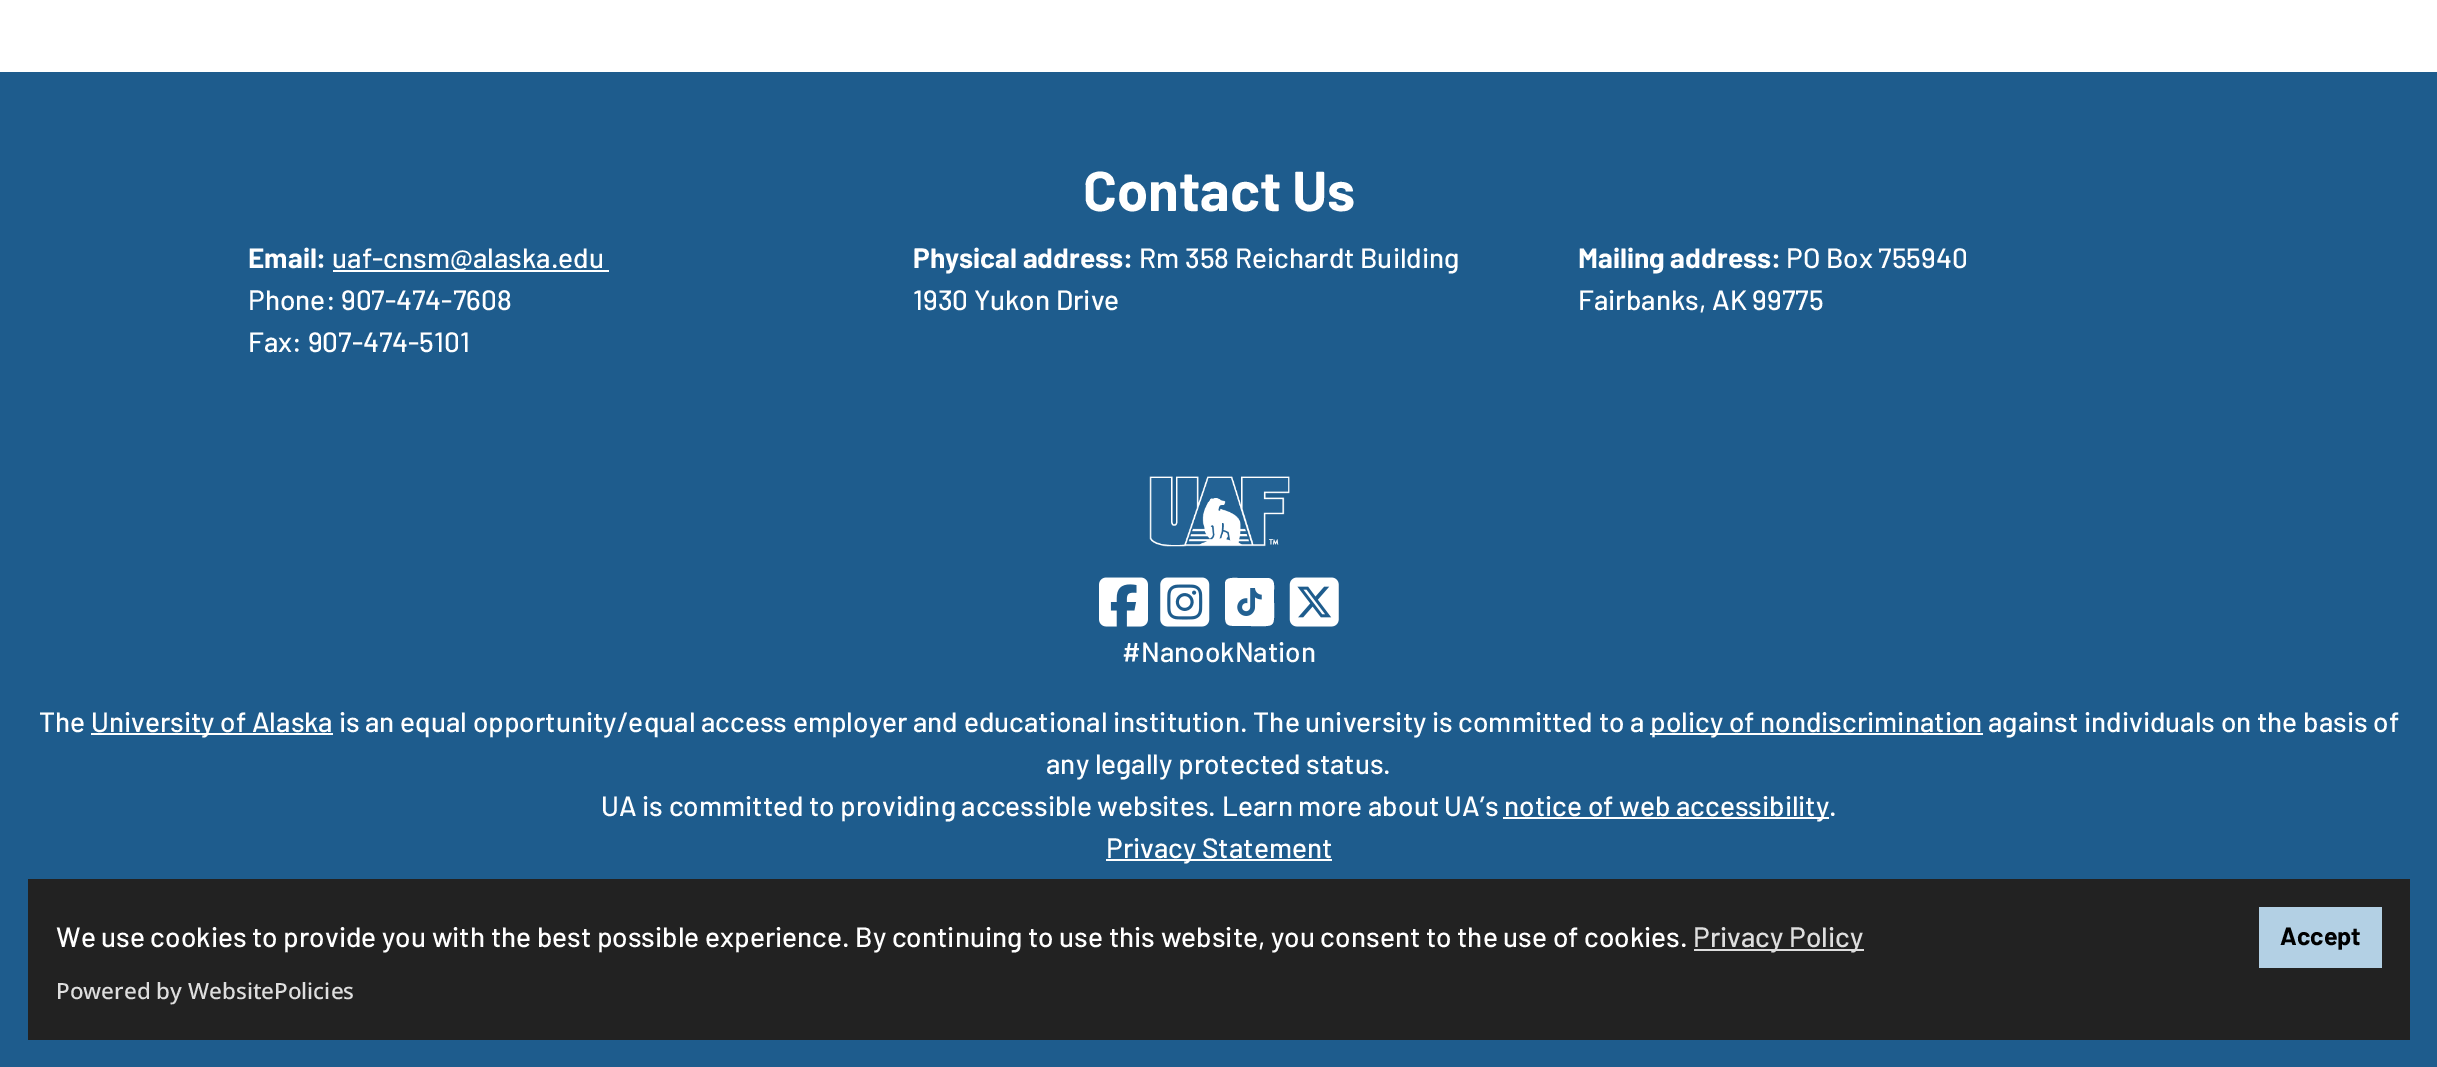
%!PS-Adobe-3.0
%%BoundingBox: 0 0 2437 1067
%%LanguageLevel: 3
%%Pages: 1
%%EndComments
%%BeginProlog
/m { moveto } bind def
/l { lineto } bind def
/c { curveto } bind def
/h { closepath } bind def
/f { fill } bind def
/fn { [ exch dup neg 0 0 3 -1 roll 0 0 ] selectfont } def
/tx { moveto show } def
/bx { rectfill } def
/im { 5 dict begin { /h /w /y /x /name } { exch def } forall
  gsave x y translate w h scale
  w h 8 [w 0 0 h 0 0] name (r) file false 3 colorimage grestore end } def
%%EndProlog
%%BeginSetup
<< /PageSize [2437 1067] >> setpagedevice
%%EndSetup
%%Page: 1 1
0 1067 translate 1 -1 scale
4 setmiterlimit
1 setgray
0 0 2437 1067 bx
0.118 0.361 0.553 setrgbcolor
0 72 2437 995 bx
/Barlow-Bold 56 fn
1 setgray
(Contact Us) 1083 211 tx
/Barlow-Bold 28 fn
(Email:) 248 268 tx
333 270 276 2 bx
/Barlow-Medium 28 fn
(uaf-cnsm@alaska.edu) 332 268 tx
(Phone: 907-474-7608) 248 310 tx
(Fax: 907-474-5101) 248 352 tx
/Barlow-Bold 28 fn
(Physical address:) 913 268 tx
/Barlow-Medium 28 fn
(Rm 358 Reichardt Building) 1139 268 tx
(1930 Yukon Drive) 913 310 tx
/Barlow-Bold 28 fn
(Mailing address:) 1578 268 tx
/Barlow-Medium 28 fn
(PO Box 755940) 1786 268 tx
(Fairbanks, AK 99775) 1578 310 tx
(image0.raw) 1149 476 141 71 im
(image1.raw) 1099 577 49 50 im
(image2.raw) 1160 577 50 50 im
1225 584 m 1225 577 1232 578 1238 578 c 1268 578 l 1275 579 1274 585 1274 590 c 1274 602 l 1274 629 1277 626 1250 626 c 1238 626 l 1226 626 1225 625 1225 614 c h f
(image3.raw) 1237 588 25 28 im
(image4.raw) 1289 577 50 50 im
(#NanookNation) 1122 662 tx
(The) 39 732 tx
91 733 242 2 bx
(University of Alaska is an equal opportunity/equal access employer and educational institution. The university is committed to a) 91 732 tx
1650 733 333 2 bx
(policy of nondiscrimination against individuals on the basis of) 1650 732 tx
(any legally protected status.) 1046 774 tx
(UA is committed to providing accessible websites. Learn more about UA’s) 601 816 tx
1503 817 326 2 bx
(notice of web accessibility.) 1504 816 tx
1106 859 226 2 bx
(Privacy Statement) 1106 858 tx
0.133 setgray
28 879 2382 161 bx
1 setgray
(We use cookies to provide you with the best possible experience. By continuing to use this website, you consent to the use of cookies.) 56 947 tx
0.871 setgray
1694 949 170 2 bx
(Privacy Policy) 1693 947 tx
0.702 0.816 0.894 setrgbcolor
2259 907 123 61 bx
/Barlow-Bold 25 fn
0 setgray
(Accept) 2280 945 tx
/NotoSans-Medium 22.4 fn
0.871 setgray
(Powered by WebsitePolicies) 56 999 tx
showpage
%%EOF
